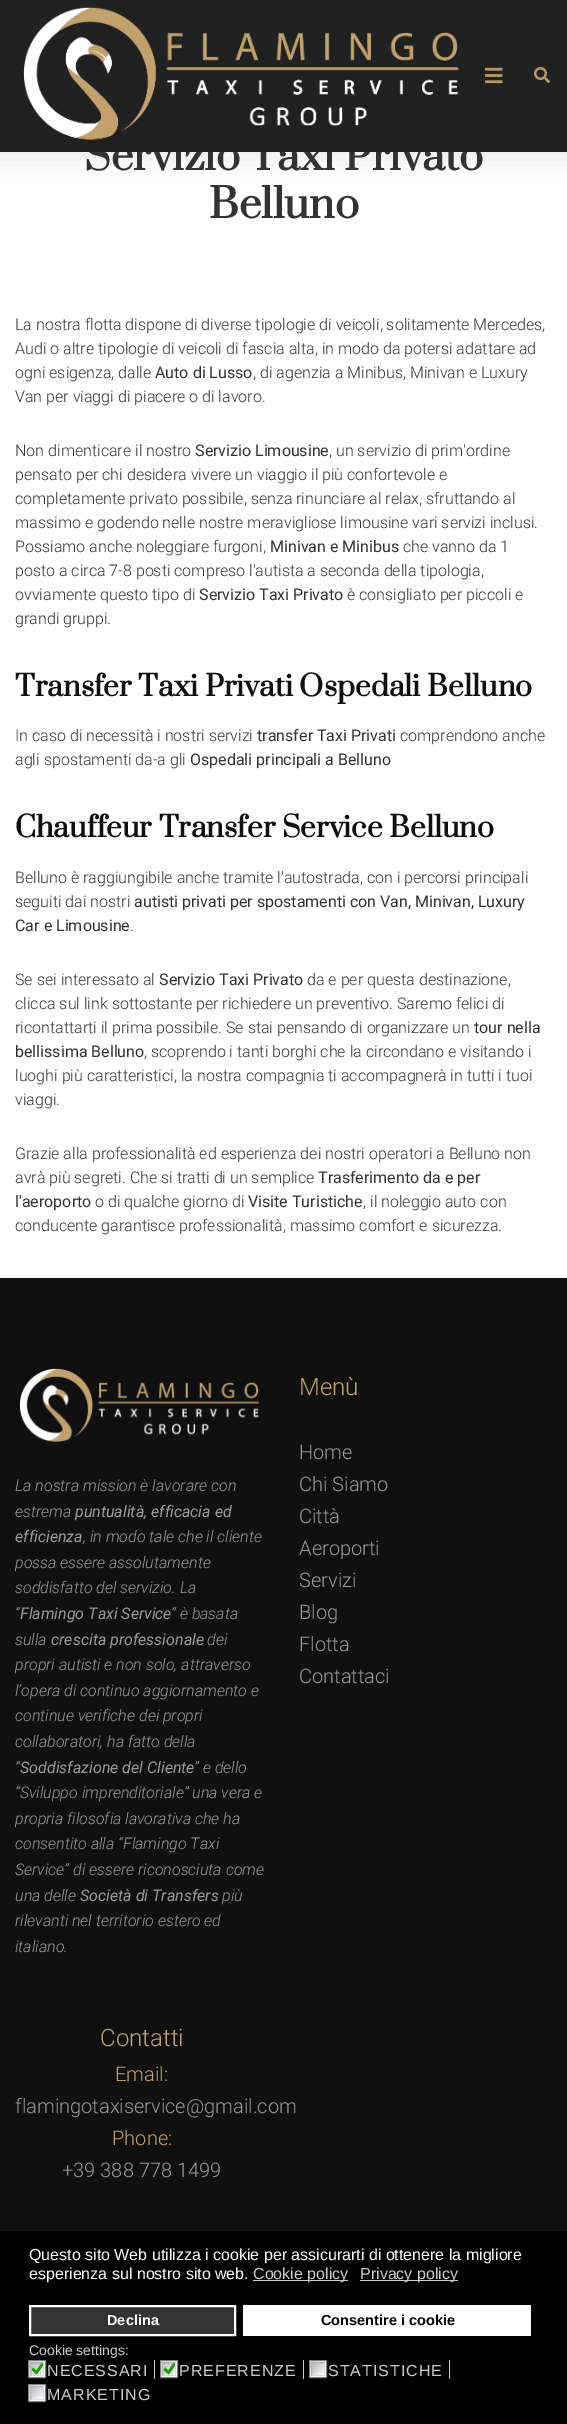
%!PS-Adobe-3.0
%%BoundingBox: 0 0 567 2424
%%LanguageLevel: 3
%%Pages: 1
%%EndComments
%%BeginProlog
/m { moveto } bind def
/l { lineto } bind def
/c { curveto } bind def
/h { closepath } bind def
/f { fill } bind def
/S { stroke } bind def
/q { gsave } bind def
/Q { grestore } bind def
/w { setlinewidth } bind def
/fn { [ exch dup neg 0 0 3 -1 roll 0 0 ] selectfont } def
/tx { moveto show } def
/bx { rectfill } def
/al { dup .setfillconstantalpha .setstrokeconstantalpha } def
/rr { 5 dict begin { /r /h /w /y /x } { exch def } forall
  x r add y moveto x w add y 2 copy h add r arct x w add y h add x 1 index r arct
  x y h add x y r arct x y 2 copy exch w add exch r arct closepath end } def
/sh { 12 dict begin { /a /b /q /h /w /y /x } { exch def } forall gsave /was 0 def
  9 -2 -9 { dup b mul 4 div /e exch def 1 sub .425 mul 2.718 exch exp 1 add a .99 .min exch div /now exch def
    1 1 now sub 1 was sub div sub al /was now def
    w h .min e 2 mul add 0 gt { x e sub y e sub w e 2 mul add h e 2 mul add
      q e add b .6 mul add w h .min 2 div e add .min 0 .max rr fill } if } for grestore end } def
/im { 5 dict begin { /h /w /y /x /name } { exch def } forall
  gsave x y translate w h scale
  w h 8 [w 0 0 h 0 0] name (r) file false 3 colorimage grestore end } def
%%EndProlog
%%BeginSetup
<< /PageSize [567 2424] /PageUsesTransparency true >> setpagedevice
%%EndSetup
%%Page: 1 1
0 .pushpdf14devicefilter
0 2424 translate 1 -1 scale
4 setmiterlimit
1 setgray
0 0 567 2424 bx
0 setgray
-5 -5 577 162 0 13.5 0.09 sh
/Prata-Bold 40 fn
0.2 setgray
(Servizio Taxi Privato) 84 170 tx
0.129 setgray
0 0 567 152 bx
(image0.raw) 23 7 436 133 im
(image1.raw) 485 67 18 17 im
(image2.raw) 534 67 16 16 im
0.2 setgray
(Belluno) 209 218 tx
/Roboto-Light 16 fn
(La nostra flotta dispone di diverse tipologie di veicoli, solitamente Mercedes,) 15 330 tx
(Audi o altre tipologie di veicoli di fascia alta, in modo da potersi adattare ad) 15 354 tx
(ogni esigenza, dalle) 15 378 tx
/Roboto-Regular 16 fn
(Auto di Lusso) 155 378 tx
/Roboto-Light 16 fn
(, di agenzia a Minibus, Minivan e Luxury) 253 378 tx
(Van per viaggi di piacere o di lavoro.) 15 402 tx
(Non dimenticare il nostro) 15 456 tx
/Roboto-Regular 16 fn
(Servizio Limousine) 195 456 tx
/Roboto-Light 16 fn
(, un servizio di prim'ordine) 329 456 tx
(pensato per chi desidera vivere un viaggio il più confortevole e) 15 480 tx
(completamente privato possibile, senza rinunciare al relax, sfruttando al) 15 504 tx
(massimo e godendo nelle nostre meravigliose limousine vari servizi inclusi.) 15 528 tx
(Possiamo anche noleggiare furgoni,) 15 552 tx
/Roboto-Regular 16 fn
(Minivan e Minibus) 270 552 tx
/Roboto-Light 16 fn
(che vanno da 1) 403 552 tx
(posto a circa 7-8 posti compreso l'autista a seconda della tipologia,) 15 576 tx
(ovviamente questo tipo di) 15 600 tx
/Roboto-Regular 16 fn
(Servizio Taxi Privato) 199 600 tx
/Roboto-Light 16 fn
(è consigliato per piccoli e) 347 600 tx
(grandi gruppi.) 15 624 tx
/Prata-Bold 28 fn
0.063 setgray
(Transfer Taxi Privati Ospedali Belluno) 15 696 tx
/Roboto-Light 16 fn
0.2 setgray
(In caso di necessità i nostri servizi) 15 741 tx
/Roboto-Regular 16 fn
(transfer Taxi Privati) 257 741 tx
/Roboto-Light 16 fn
(comprendono anche) 400 741 tx
(agli spostamenti da-a gli) 15 765 tx
/Roboto-Regular 16 fn
(Ospedali principali a Belluno) 190 765 tx
/Prata-Bold 28 fn
0.063 setgray
(Chauffeur Transfer Service Belluno) 15 837 tx
/Roboto-Light 16 fn
0.2 setgray
(Belluno è raggiungibile anche tramite l'autostrada, con i percorsi principali) 15 883 tx
(seguiti dai nostri) 15 907 tx
/Roboto-Regular 16 fn
(autisti privati per spostamenti con Van, Minivan, Luxury) 134 907 tx
(Car e Limousine) 15 931 tx
/Roboto-Light 16 fn
(.) 130 931 tx
(Se sei interessato al) 15 985 tx
/Roboto-Regular 16 fn
(Servizio Taxi Privato) 159 985 tx
/Roboto-Light 16 fn
(da e per questa destinazione,) 307 985 tx
(clicca sul link sottostante per richiedere un preventivo. Saremo felici di) 15 1009 tx
(ricontattarti il prima possibile. Se stai pensando di organizzare un) 15 1033 tx
/Roboto-Regular 16 fn
(tour nella) 474 1033 tx
(bellissima Belluno) 15 1057 tx
/Roboto-Light 16 fn
(, scoprendo i tanti borghi che la circondano e visitando i) 144 1057 tx
(luoghi più caratteristici, la nostra compagnia ti accompagnerà in tutti i tuoi) 15 1081 tx
(viaggi.) 15 1105 tx
(Grazie alla professionalità ed esperienza dei nostri operatori a Belluno non) 15 1159 tx
(avrà più segreti. Che si tratti di un semplice) 15 1183 tx
/Roboto-Regular 16 fn
(Trasferimento da e per) 318 1183 tx
(l'aeroporto) 15 1207 tx
/Roboto-Light 16 fn
(o di qualche giorno di) 95 1207 tx
/Roboto-Regular 16 fn
(Visite Turistiche) 248 1207 tx
/Roboto-Light 16 fn
(, il noleggio auto con) 363 1207 tx
(conducente garantisce professionalità, massimo comfort e sicurezza.) 15 1231 tx
0.063 setgray
0 1278 567 953 bx
(image3.raw) 19 1368 241 75 im
/Roboto-LightItalic 16 fn
0.6 setgray
(La nostra mission è lavorare con) 15 1491 tx
(estrema) 15 1517 tx
/Roboto-Italic 16 fn
(puntualità, efficacia ed) 75 1517 tx
(efficienza) 15 1542 tx
/Roboto-LightItalic 16 fn
(, in modo tale che il cliente) 83 1542 tx
(possa essere assolutamente) 15 1568 tx
(soddisfatto del servizio. La) 15 1593 tx
(“) 15 1619 tx
/Roboto-Italic 16 fn
(Flamingo Taxi Service) 20 1619 tx
/Roboto-LightItalic 16 fn
(” è basata) 171 1619 tx
(sulla) 15 1645 tx
/Roboto-Italic 16 fn
(crescita professionale) 51 1645 tx
/Roboto-LightItalic 16 fn
(dei) 207 1645 tx
(propri autisti e non solo, attraverso) 15 1670 tx
(l’opera di continuo aggiornamento e) 15 1696 tx
(continue verifiche dei propri) 15 1721 tx
(collaboratori, ha fatto della) 15 1747 tx
(“) 15 1773 tx
/Roboto-Italic 16 fn
(Soddisfazione del Cliente) 20 1773 tx
/Roboto-LightItalic 16 fn
(” e dello) 194 1773 tx
(“Sviluppo imprenditoriale” una vera e) 15 1798 tx
(propria filosofia lavorativa che ha) 15 1824 tx
(consentito alla “Flamingo Taxi) 15 1849 tx
(Service” di essere riconosciuta come) 15 1875 tx
(una delle) 15 1901 tx
/Roboto-Italic 16 fn
(Società di Transfers) 80 1901 tx
/Roboto-LightItalic 16 fn
(più) 222 1901 tx
(rilevanti nel territorio estero ed) 15 1926 tx
(italiano.) 15 1952 tx
/Roboto-Light 24 fn
0.761 0.631 0.427 setrgbcolor
(Menù) 299 1395 tx
/Roboto-Light 20 fn
0.6 setgray
(Home) 299 1459 tx
(Chi Siamo) 299 1491 tx
(Città) 299 1523 tx
(Aeroporti) 299 1555 tx
(Servizi) 299 1587 tx
(Blog) 299 1619 tx
(Flotta) 299 1651 tx
(Contattaci) 299 1683 tx
/Roboto-Light 24 fn
0.761 0.631 0.427 setrgbcolor
(Contatti) 100 2046 tx
/Roboto-Light 20 fn
(Email:) 115 2081 tx
0.6 setgray
(flamingotaxiservice@gmail.com) 15 2113 tx
0.761 0.631 0.427 setrgbcolor
(Phone:) 112 2145 tx
0.6 setgray
(+39 388 778 1499) 62 2177 tx
0 setgray
0 2231 567 193 bx
/LiberationSans-Regular 16 fn
1 setgray
(Questo sito Web utilizza i cookie per assicurarti di ottenere la migliore) 29 2260 tx
(esperienza sul nostro sito web.) 29 2279 tx
0.8 setgray
253 2280 95 1 bx
(Cookie policy) 253 2279 tx
360 2280 98 1 bx
(Privacy policy) 360 2279 tx
0.2 setgray
30 2306 m 235 2306 l 235 2335 l 30 2335 l h q f Q
1 setgray
2 w
S
/LiberationSans-Bold 14.5 fn
(Declina) 107 2325 tx
243 2305 288 31 bx
0 setgray
(Consentire i cookie) 321 2325 tx
/LiberationSans-Regular 14 fn
0.8 setgray
(Cookie settings:) 29 2355 tx
1 setgray
28.5 2360.5 17 17 0.5 rr q f Q
0.502 setgray
1 w
S
(image4.raw) 30 2362 14 14 im
0.863 0.867 0.871 setrgbcolor
43.5 2362.5 m 43.5 2369 l 43.5 2377.5 45.5 2375.5 37 2375.5 c 30.5 2375.5 l S
0.702 setgray
30.5 2375.5 m 30.5 2369 l 30.5 2360.5 28.5 2362.5 37 2362.5 c 43.5 2362.5 l S
0.8 setgray
154 2360 1 19 bx
/LiberationSans-Regular 16 fn
47 2376 m 1 0 (NECESSARI) ashow
1 setgray
160.5 2360.5 17 17 0.5 rr q f Q
0.502 setgray
S
(image4.raw) 162 2362 14 14 im
0.863 0.867 0.871 setrgbcolor
175.5 2362.5 m 175.5 2369 l 175.5 2377.5 177.5 2375.5 169 2375.5 c 162.5 2375.5 l S
0.702 setgray
162.5 2375.5 m 162.5 2369 l 162.5 2360.5 160.5 2362.5 169 2362.5 c 175.5 2362.5 l S
0.8 setgray
303 2360 1 19 bx
179 2376 m 1 0 (PREFERENZE) ashow
1 setgray
309.5 2360.5 17 17 0.5 rr q f Q
0.502 setgray
S
q 312 2363 m 324 2363 l 324 2375 l 312 2375 l h clip newpath
<< /ShadingType 2 /ColorSpace /DeviceRGB /Coords [312 2363 324 2375] /Extend [true true] /Function << /FunctionType 2 /Domain [0 1] /C0 [0.694 0.714 0.745] /C1 [1 1 1] /N 1 >> >> shfill Q
0.863 0.867 0.871 setrgbcolor
324.5 2362.5 m 324.5 2369 l 324.5 2377.5 326.5 2375.5 318 2375.5 c 311.5 2375.5 l S
0.702 setgray
311.5 2375.5 m 311.5 2369 l 311.5 2360.5 309.5 2362.5 318 2362.5 c 324.5 2362.5 l S
0.8 setgray
449 2360 1 19 bx
328 2376 m 1 0 (STATISTICHE) ashow
1 setgray
28.5 2384.5 17 17 0.5 rr q f Q
0.502 setgray
S
q 31 2387 m 43 2387 l 43 2399 l 31 2399 l h clip newpath
<< /ShadingType 2 /ColorSpace /DeviceRGB /Coords [31 2387 43 2399] /Extend [true true] /Function << /FunctionType 2 /Domain [0 1] /C0 [0.694 0.714 0.745] /C1 [1 1 1] /N 1 >> >> shfill Q
0.863 0.867 0.871 setrgbcolor
43.5 2386.5 m 43.5 2393 l 43.5 2401.5 45.5 2399.5 37 2399.5 c 30.5 2399.5 l S
0.702 setgray
30.5 2399.5 m 30.5 2393 l 30.5 2384.5 28.5 2386.5 37 2386.5 c 43.5 2386.5 l S
0.8 setgray
47 2400 m 1 0 (MARKETING) ashow
.poppdf14devicefilter showpage
%%EOF
